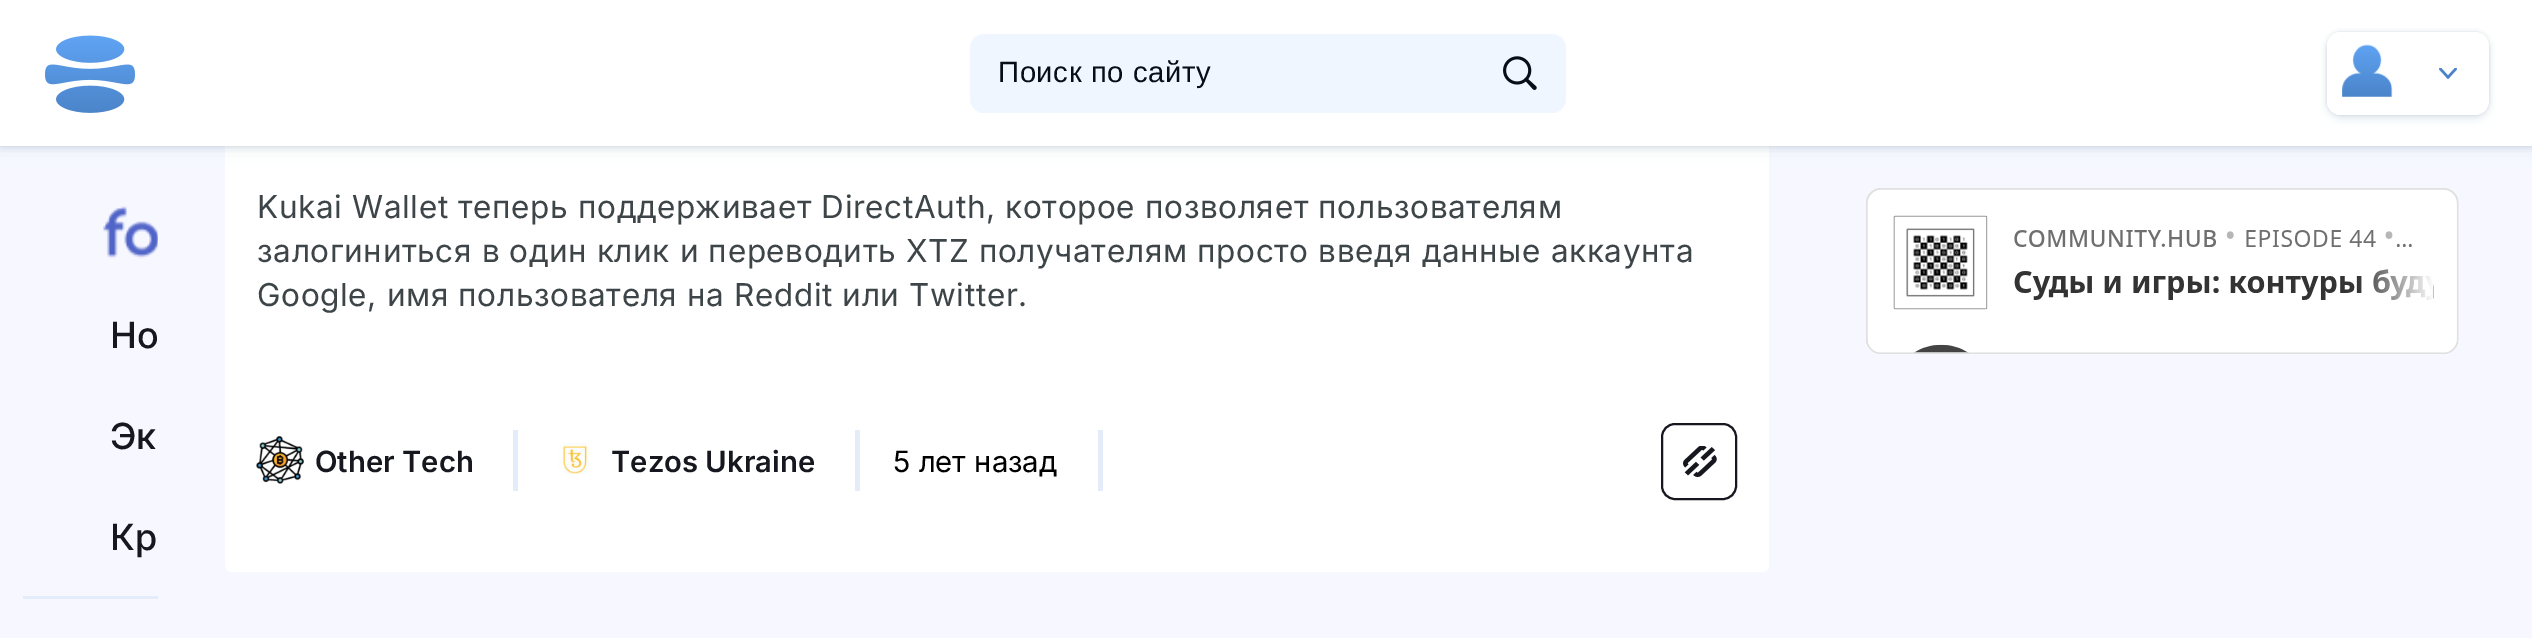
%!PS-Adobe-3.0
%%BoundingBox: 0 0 2532 638
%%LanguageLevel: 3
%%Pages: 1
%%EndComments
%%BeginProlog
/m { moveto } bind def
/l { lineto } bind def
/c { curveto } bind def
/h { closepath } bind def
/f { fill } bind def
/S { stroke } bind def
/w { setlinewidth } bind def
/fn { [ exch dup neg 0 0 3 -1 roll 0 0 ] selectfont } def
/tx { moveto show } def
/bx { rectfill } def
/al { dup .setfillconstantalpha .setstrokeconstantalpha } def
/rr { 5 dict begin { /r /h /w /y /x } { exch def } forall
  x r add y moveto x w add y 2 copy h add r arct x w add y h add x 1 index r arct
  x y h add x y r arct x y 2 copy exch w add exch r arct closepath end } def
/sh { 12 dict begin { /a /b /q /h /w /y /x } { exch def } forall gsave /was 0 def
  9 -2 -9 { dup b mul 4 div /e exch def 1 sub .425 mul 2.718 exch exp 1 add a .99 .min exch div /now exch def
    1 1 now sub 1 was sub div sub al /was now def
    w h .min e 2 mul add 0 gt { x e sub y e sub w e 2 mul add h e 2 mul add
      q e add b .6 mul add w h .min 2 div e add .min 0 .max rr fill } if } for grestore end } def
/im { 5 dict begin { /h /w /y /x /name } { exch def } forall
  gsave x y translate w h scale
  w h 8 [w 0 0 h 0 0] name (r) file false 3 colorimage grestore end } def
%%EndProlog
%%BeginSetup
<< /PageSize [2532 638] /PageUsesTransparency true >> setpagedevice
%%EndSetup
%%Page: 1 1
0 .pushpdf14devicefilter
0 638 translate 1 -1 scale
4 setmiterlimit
0.969 0.973 1 setrgbcolor
0 0 2532 638 bx
1 setgray
225 23 1544 549 7 rr f
0.361 0.522 0.714 setrgbcolor
0 0 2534 146 0 9 0.15 sh
0.239 0.314 0.424 setrgbcolor
0 0 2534 146 0 4.5 0.2 sh
1 setgray
0 0 2532 146 bx
(image0.raw) 45 35 90 78 im
0.941 0.965 1 setrgbcolor
970 34 596 79 14 rr f
(image1.raw) 1503 56 34 34 im
/LiberationSans-Regular 29.25 fn
0.024 0.055 0.086 setrgbcolor
998 82 m 0.6 0 (Поиск по сайту) ashow
0.361 0.522 0.714 setrgbcolor
2327 36 162 83 14 4.5 0.15 sh
0.239 0.314 0.424 setrgbcolor
2327 32 162 83 14 2 0.2 sh
1 setgray
2327 32 162 83 14 rr f
2341 32 m 2408 32 l 2408 115 l 2341 115 l 2333.5 115 2327 108.5 2327 101 c 2327 46 l 2327 38.5 2333.5 32 2341 32 c h f
(image2.raw) 2342 44 51 53 im
(image3.raw) 2439 68 18 11 im
0.894 0.925 0.98 setrgbcolor
23 596 135 3 bx
(image4.raw) 103 206 55 53 im
/Inter-Medium 36 fn
0.09 0.094 0.122 setrgbcolor
(Но) 110 348 tx
(Эк) 110 449 tx
(Кр) 110 550 tx
/Inter-Regular 31.5 fn
0.239 0.271 0.282 setrgbcolor
257 218 m 0.63 0 (Kukai Wallet теперь поддерживает DirectAuth, которое позволяет пользователям) ashow
257 262 m 0.63 0 (залогиниться в один клик и переводить XTZ получателям просто введя данные аккаунта) ashow
257 306 m 0.63 0 (Google, имя пользователя на Reddit или Twitter.) ashow
(image5.raw) 256 436 48 48 im
/Inter-SemiBold 29.25 fn
0.09 0.094 0.122 setrgbcolor
(Other Tech) 315 472 tx
0.894 0.925 0.98 setrgbcolor
513 430 5 61 bx
(image6.raw) 558 442 31 32 im
0.09 0.094 0.122 setrgbcolor
(Tezos Ukraine) 611 472 tx
0.894 0.925 0.98 setrgbcolor
855 430 5 61 bx
/Inter-Regular 29.25 fn
0 setgray
(5 лет назад) 893 472 tx
0.894 0.925 0.98 setrgbcolor
1098 430 5 61 bx
(image7.raw) 1683 446 34 31 im
0.09 0.094 0.122 setrgbcolor
2 w
1662 424 74 75 13 rr S
(image8.raw) 1866 188 593 166 im
.poppdf14devicefilter showpage
%%EOF
